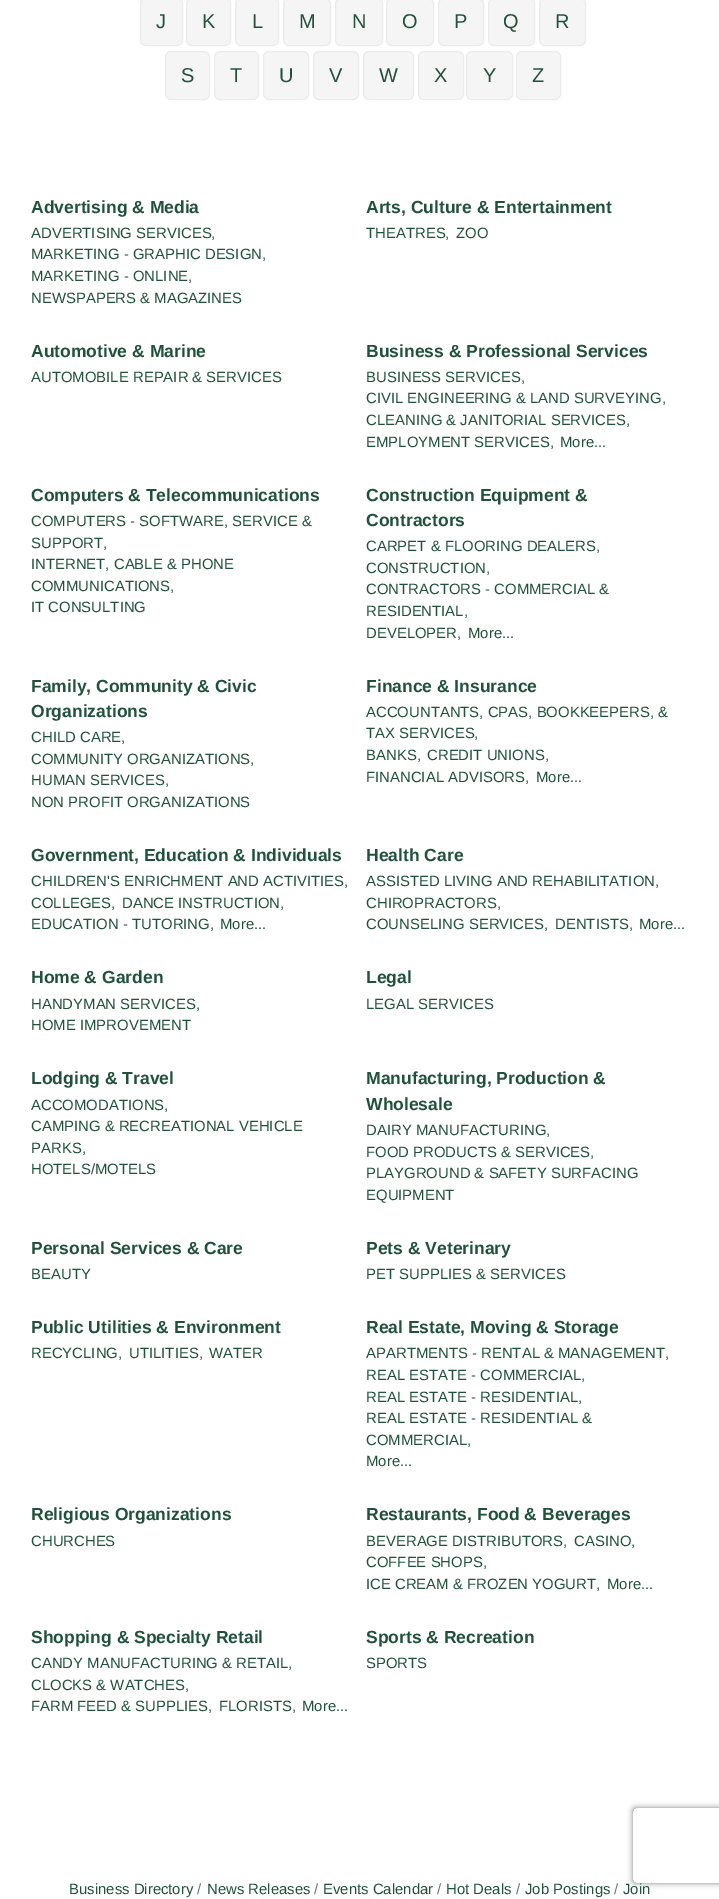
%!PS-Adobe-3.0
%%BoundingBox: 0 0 719 1899
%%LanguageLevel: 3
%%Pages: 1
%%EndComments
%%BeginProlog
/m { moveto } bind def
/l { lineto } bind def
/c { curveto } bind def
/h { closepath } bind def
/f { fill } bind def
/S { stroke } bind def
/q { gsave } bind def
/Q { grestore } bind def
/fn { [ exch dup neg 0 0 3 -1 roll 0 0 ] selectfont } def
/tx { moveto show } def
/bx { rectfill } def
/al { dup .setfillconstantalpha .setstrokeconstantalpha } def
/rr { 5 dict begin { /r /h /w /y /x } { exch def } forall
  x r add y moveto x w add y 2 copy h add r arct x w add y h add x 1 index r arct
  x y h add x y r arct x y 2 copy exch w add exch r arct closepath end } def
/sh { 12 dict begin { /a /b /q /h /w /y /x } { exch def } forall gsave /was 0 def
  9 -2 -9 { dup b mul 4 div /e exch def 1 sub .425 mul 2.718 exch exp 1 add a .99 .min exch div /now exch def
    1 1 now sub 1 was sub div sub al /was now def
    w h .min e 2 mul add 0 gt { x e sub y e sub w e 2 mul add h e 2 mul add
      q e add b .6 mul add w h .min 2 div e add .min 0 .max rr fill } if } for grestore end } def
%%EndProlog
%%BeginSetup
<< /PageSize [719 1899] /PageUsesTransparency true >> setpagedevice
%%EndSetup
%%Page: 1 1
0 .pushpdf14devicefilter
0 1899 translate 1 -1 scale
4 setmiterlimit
1 setgray
0 0 719 1899 bx
0.961 setgray
140.5 -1.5 42 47 5.5 rr q f Q
0.922 setgray
S
/LiberationSans-Regular 20 fn
0.125 0.318 0.231 setrgbcolor
(J) 156 28 tx
0.961 setgray
186.5 -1.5 44 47 5.5 rr q f Q
0.922 setgray
S
0.125 0.318 0.231 setrgbcolor
(K) 202 28 tx
0.961 setgray
235.5 -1.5 43 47 5.5 rr q f Q
0.922 setgray
S
0.125 0.318 0.231 setrgbcolor
(L) 252 28 tx
0.961 setgray
283.5 -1.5 47 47 5.5 rr q f Q
0.922 setgray
S
0.125 0.318 0.231 setrgbcolor
(M) 299 28 tx
0.961 setgray
335.5 -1.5 47 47 5.5 rr q f Q
0.922 setgray
S
0.125 0.318 0.231 setrgbcolor
(N) 352 28 tx
0.961 setgray
386.5 -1.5 47 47 5.5 rr q f Q
0.922 setgray
S
0.125 0.318 0.231 setrgbcolor
(O) 402 28 tx
0.961 setgray
438.5 -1.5 45 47 5.5 rr q f Q
0.922 setgray
S
0.125 0.318 0.231 setrgbcolor
(P) 454 28 tx
0.961 setgray
488.5 -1.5 46 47 5.5 rr q f Q
0.922 setgray
S
0.125 0.318 0.231 setrgbcolor
(Q) 503 28 tx
0.961 setgray
539.5 -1.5 46 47 5.5 rr q f Q
0.922 setgray
S
0.125 0.318 0.231 setrgbcolor
(R) 555 28 tx
0.961 setgray
165.5 51.5 44 48 5.5 rr q f Q
0.922 setgray
S
0.125 0.318 0.231 setrgbcolor
(S) 181 82 tx
0.961 setgray
214.5 51.5 44 48 5.5 rr q f Q
0.922 setgray
S
0.125 0.318 0.231 setrgbcolor
(T) 230 82 tx
0.961 setgray
263.5 51.5 45 48 5.5 rr q f Q
0.922 setgray
S
0.125 0.318 0.231 setrgbcolor
(U) 279 82 tx
0.961 setgray
313.5 51.5 45 48 5.5 rr q f Q
0.922 setgray
S
0.125 0.318 0.231 setrgbcolor
(V) 329 82 tx
0.961 setgray
363.5 51.5 50 48 5.5 rr q f Q
0.922 setgray
S
0.125 0.318 0.231 setrgbcolor
(W) 379 82 tx
0.961 setgray
418.5 51.5 45 48 5.5 rr q f Q
0.922 setgray
S
0.125 0.318 0.231 setrgbcolor
(X) 434 82 tx
0.961 setgray
466.5 51.5 46 48 5.5 rr q f Q
0.922 setgray
S
0.125 0.318 0.231 setrgbcolor
(Y) 483 82 tx
0.961 setgray
516.5 51.5 44 48 5.5 rr q f Q
0.922 setgray
S
0.125 0.318 0.231 setrgbcolor
(Z) 532 82 tx
/LiberationSans-Bold 17.5 fn
(Advertising & Media) 31 213 tx
/LiberationSans-Regular 14.9 fn
(ADVERTISING SERVICES,) 31 238 tx
(MARKETING - GRAPHIC DESIGN,) 31 259 tx
(MARKETING - ONLINE,) 31 281 tx
(NEWSPAPERS & MAGAZINES) 31 303 tx
/LiberationSans-Bold 17.5 fn
(Arts, Culture & Entertainment) 366 213 tx
/LiberationSans-Regular 14.9 fn
(THEATRES,) 366 238 tx
(ZOO) 456 238 tx
/LiberationSans-Bold 17.5 fn
(Automotive & Marine) 31 357 tx
/LiberationSans-Regular 14.9 fn
(AUTOMOBILE REPAIR & SERVICES) 31 382 tx
/LiberationSans-Bold 17.5 fn
(Business & Professional Services) 366 357 tx
/LiberationSans-Regular 14.9 fn
(BUSINESS SERVICES,) 366 382 tx
(CIVIL ENGINEERING & LAND SURVEYING,) 366 403 tx
(CLEANING & JANITORIAL SERVICES,) 366 425 tx
(EMPLOYMENT SERVICES,) 366 447 tx
(More...) 560 447 tx
/LiberationSans-Bold 17.5 fn
(Computers & Telecommunications) 31 501 tx
/LiberationSans-Regular 14.9 fn
(COMPUTERS - SOFTWARE, SERVICE &) 31 526 tx
(SUPPORT,) 31 548 tx
(INTERNET, CABLE & PHONE) 31 569 tx
(COMMUNICATIONS,) 31 591 tx
(IT CONSULTING) 31 612 tx
/LiberationSans-Bold 17.5 fn
(Construction Equipment &) 366 501 tx
(Contractors) 366 526 tx
/LiberationSans-Regular 14.9 fn
(CARPET & FLOORING DEALERS,) 366 551 tx
(CONSTRUCTION,) 366 573 tx
(CONTRACTORS - COMMERCIAL &) 366 594 tx
(RESIDENTIAL,) 366 616 tx
(DEVELOPER,) 366 638 tx
(More...) 468 638 tx
/LiberationSans-Bold 17.5 fn
(Family, Community & Civic) 31 692 tx
(Organizations) 31 717 tx
/LiberationSans-Regular 14.9 fn
(CHILD CARE,) 31 742 tx
(COMMUNITY ORGANIZATIONS,) 31 764 tx
(HUMAN SERVICES,) 31 785 tx
(NON PROFIT ORGANIZATIONS) 31 807 tx
/LiberationSans-Bold 17.5 fn
(Finance & Insurance) 366 692 tx
/LiberationSans-Regular 14.9 fn
(ACCOUNTANTS, CPAS, BOOKKEEPERS, &) 366 717 tx
(TAX SERVICES,) 366 738 tx
(BANKS,) 366 760 tx
(CREDIT UNIONS,) 427 760 tx
(FINANCIAL ADVISORS,) 366 782 tx
(More...) 536 782 tx
/LiberationSans-Bold 17.5 fn
(Government, Education & Individuals) 31 861 tx
/LiberationSans-Regular 14.9 fn
(CHILDREN'S ENRICHMENT AND ACTIVITIES,) 31 886 tx
(COLLEGES,) 31 908 tx
(DANCE INSTRUCTION,) 122 908 tx
(EDUCATION - TUTORING,) 31 929 tx
(More...) 220 929 tx
/LiberationSans-Bold 17.5 fn
(Health Care) 366 861 tx
/LiberationSans-Regular 14.9 fn
(ASSISTED LIVING AND REHABILITATION,) 366 886 tx
(CHIROPRACTORS,) 366 908 tx
(COUNSELING SERVICES,) 366 929 tx
(DENTISTS,) 555 929 tx
(More...) 639 929 tx
/LiberationSans-Bold 17.5 fn
(Home & Garden) 31 983 tx
/LiberationSans-Regular 14.9 fn
(HANDYMAN SERVICES,) 31 1009 tx
(HOME IMPROVEMENT) 31 1030 tx
/LiberationSans-Bold 17.5 fn
(Legal) 366 983 tx
/LiberationSans-Regular 14.9 fn
(LEGAL SERVICES) 366 1009 tx
/LiberationSans-Bold 17.5 fn
(Lodging & Travel) 31 1084 tx
/LiberationSans-Regular 14.9 fn
(ACCOMODATIONS,) 31 1110 tx
(CAMPING & RECREATIONAL VEHICLE) 31 1131 tx
(PARKS,) 31 1153 tx
(HOTELS/MOTELS) 31 1174 tx
/LiberationSans-Bold 17.5 fn
(Manufacturing, Production &) 366 1084 tx
(Wholesale) 366 1110 tx
/LiberationSans-Regular 14.9 fn
(DAIRY MANUFACTURING,) 366 1135 tx
(FOOD PRODUCTS & SERVICES,) 366 1157 tx
(PLAYGROUND & SAFETY SURFACING) 366 1178 tx
(EQUIPMENT) 366 1200 tx
/LiberationSans-Bold 17.5 fn
(Personal Services & Care) 31 1254 tx
/LiberationSans-Regular 14.9 fn
(BEAUTY) 31 1279 tx
/LiberationSans-Bold 17.5 fn
(Pets & Veterinary) 366 1254 tx
/LiberationSans-Regular 14.9 fn
(PET SUPPLIES & SERVICES) 366 1279 tx
/LiberationSans-Bold 17.5 fn
(Public Utilities & Environment) 31 1333 tx
/LiberationSans-Regular 14.9 fn
(RECYCLING,) 31 1358 tx
(UTILITIES,) 129 1358 tx
(WATER) 209 1358 tx
/LiberationSans-Bold 17.5 fn
(Real Estate, Moving & Storage) 366 1333 tx
/LiberationSans-Regular 14.9 fn
(APARTMENTS - RENTAL & MANAGEMENT,) 366 1358 tx
(REAL ESTATE - COMMERCIAL,) 366 1380 tx
(REAL ESTATE - RESIDENTIAL,) 366 1402 tx
(REAL ESTATE - RESIDENTIAL &) 366 1423 tx
(COMMERCIAL,) 366 1445 tx
(More...) 366 1466 tx
/LiberationSans-Bold 17.5 fn
(Religious Organizations) 31 1520 tx
/LiberationSans-Regular 14.9 fn
(CHURCHES) 31 1546 tx
/LiberationSans-Bold 17.5 fn
(Restaurants, Food & Beverages) 366 1520 tx
/LiberationSans-Regular 14.9 fn
(BEVERAGE DISTRIBUTORS,) 366 1546 tx
(CASINO,) 574 1546 tx
(COFFEE SHOPS,) 366 1567 tx
(ICE CREAM & FROZEN YOGURT,) 366 1589 tx
(More...) 607 1589 tx
/LiberationSans-Bold 17.5 fn
(Shopping & Specialty Retail) 31 1643 tx
/LiberationSans-Regular 14.9 fn
(CANDY MANUFACTURING & RETAIL,) 31 1668 tx
(CLOCKS & WATCHES,) 31 1690 tx
(FARM FEED & SUPPLIES,) 31 1711 tx
(FLORISTS,) 219 1711 tx
(More...) 302 1711 tx
/LiberationSans-Bold 17.5 fn
(Sports & Recreation) 366 1643 tx
/LiberationSans-Regular 14.9 fn
(SPORTS) 366 1668 tx
(Business Directory) 69 1894 tx
0.424 0.459 0.49 setrgbcolor
(/) 197 1894 tx
0.125 0.318 0.231 setrgbcolor
(News Releases) 207 1894 tx
0.424 0.459 0.49 setrgbcolor
(/) 314 1894 tx
0.125 0.318 0.231 setrgbcolor
(Events Calendar) 323 1894 tx
0.424 0.459 0.49 setrgbcolor
(/) 437 1894 tx
0.125 0.318 0.231 setrgbcolor
(Hot Deals) 446 1894 tx
0.424 0.459 0.49 setrgbcolor
(/) 516 1894 tx
0.125 0.318 0.231 setrgbcolor
(Job Postings) 525 1894 tx
0.424 0.459 0.49 setrgbcolor
(/) 614 1894 tx
0.125 0.318 0.231 setrgbcolor
(Join) 623 1894 tx
q
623 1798 m 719 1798 l 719 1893 l 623 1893 l h 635.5 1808 m 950.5 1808 l 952 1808 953 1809 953 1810.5 c 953 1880.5 l 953 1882 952 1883 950.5 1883 c 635.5 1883 l 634 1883 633 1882 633 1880.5 c 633 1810.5 l 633 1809 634 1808 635.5 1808 c h eoclip newpath
0.502 setgray
633 1808 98 75 2.5 3 1 sh
Q
.poppdf14devicefilter showpage
%%EOF
